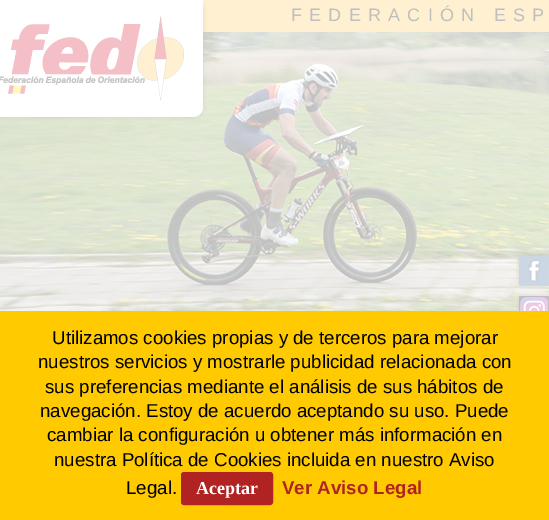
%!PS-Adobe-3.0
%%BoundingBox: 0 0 549 520
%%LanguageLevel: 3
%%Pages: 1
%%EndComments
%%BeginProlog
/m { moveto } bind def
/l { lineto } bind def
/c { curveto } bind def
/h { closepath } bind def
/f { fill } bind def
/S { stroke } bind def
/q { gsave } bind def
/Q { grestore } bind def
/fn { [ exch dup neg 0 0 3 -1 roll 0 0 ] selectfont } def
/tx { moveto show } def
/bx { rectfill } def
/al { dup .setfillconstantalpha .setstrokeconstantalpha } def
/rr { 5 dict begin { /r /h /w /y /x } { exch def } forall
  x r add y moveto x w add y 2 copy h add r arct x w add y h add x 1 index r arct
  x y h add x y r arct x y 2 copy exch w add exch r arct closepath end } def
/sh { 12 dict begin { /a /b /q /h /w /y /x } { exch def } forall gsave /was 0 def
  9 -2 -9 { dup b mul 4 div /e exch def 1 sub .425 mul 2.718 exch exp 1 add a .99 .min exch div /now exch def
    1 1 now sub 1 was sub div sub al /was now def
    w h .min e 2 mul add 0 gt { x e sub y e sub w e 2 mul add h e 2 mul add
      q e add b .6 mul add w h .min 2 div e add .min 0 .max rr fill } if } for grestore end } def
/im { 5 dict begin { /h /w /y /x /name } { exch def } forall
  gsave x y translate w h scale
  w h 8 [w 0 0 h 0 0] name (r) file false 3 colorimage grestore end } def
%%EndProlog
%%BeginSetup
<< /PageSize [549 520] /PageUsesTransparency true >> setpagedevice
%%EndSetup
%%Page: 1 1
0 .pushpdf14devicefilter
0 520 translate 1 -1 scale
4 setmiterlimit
0.996 0.941 0.82 setrgbcolor
0 0 549 520 bx
(image1.raw) 0 32 549 279 im
0.749 setgray
-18 1 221 117 10 2.5 0.4 sh
1 setgray
-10 0 m 203 0 l 203 107 l 203 112.5 198.5 117 193 117 c 0 117 l -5.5 117 -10 112.5 -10 107 c h f
(image0.raw) 0 16 184 85 im
/LiberationSans-Regular 18 fn
0.749 setgray
291 21 m 7.25 0 (FEDERACIÓN ESP) ashow
(image2.raw) 516 253 33 36 im
(image3.raw) 516 293 33 18 im
1 0.796 0 setrgbcolor
0 311 549 209 bx
/LiberationSans-Regular 18.7 fn
0 setgray
(Utilizamos cookies propias y de terceros para mejorar) 52 344 tx
(nuestros servicios y mostrarle publicidad relacionada con) 38 368 tx
(sus preferencias mediante el análisis de sus hábitos de) 45 393 tx
(navegación. Estoy de acuerdo aceptando su uso. Puede) 40 417 tx
(cambiar la configuración u obtener más información en) 47 441 tx
(nuestra Política de Cookies incluida en nuestro Aviso) 54 466 tx
(Legal.) 126 494 tx
0.694 0.137 0.137 setrgbcolor
181.5 472.5 91 32 2.5 rr q f Q
S
/LiberationSerif-Bold 18 fn
1 setgray
(Aceptar) 196 494 tx
/LiberationSans-Bold 18.7 fn
0.694 0.137 0.137 setrgbcolor
(Ver Aviso Legal) 282 494 tx
.poppdf14devicefilter showpage
%%EOF
